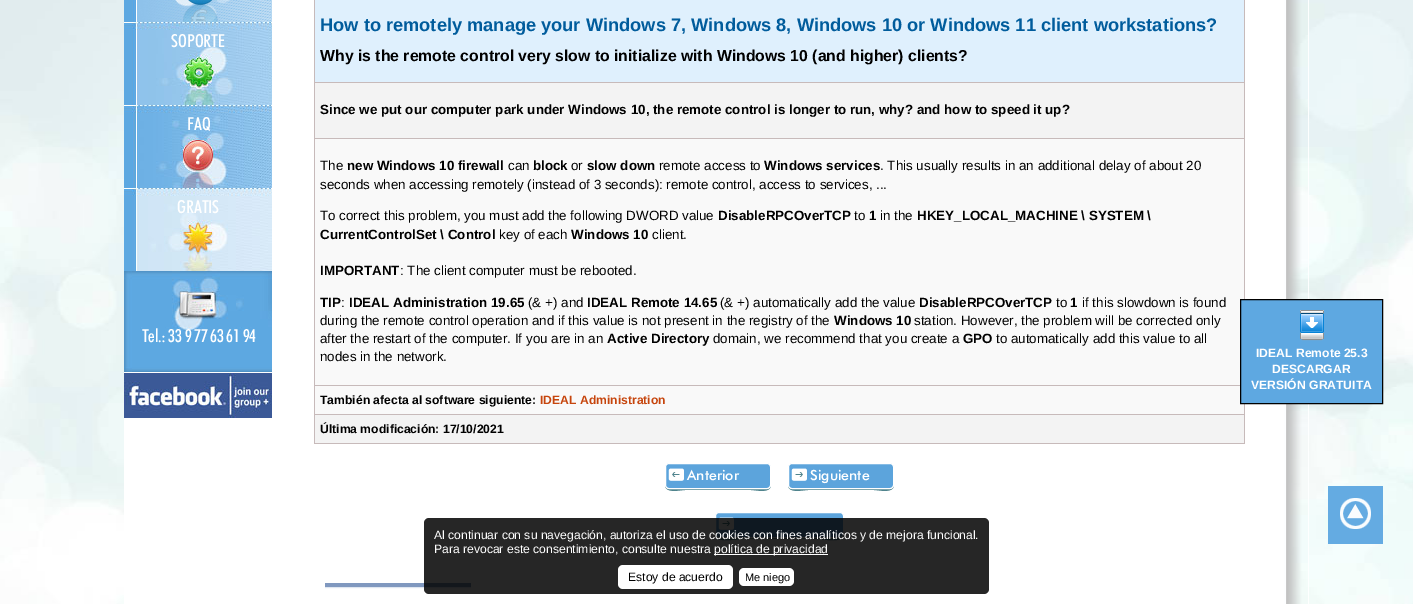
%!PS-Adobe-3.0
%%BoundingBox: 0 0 1413 604
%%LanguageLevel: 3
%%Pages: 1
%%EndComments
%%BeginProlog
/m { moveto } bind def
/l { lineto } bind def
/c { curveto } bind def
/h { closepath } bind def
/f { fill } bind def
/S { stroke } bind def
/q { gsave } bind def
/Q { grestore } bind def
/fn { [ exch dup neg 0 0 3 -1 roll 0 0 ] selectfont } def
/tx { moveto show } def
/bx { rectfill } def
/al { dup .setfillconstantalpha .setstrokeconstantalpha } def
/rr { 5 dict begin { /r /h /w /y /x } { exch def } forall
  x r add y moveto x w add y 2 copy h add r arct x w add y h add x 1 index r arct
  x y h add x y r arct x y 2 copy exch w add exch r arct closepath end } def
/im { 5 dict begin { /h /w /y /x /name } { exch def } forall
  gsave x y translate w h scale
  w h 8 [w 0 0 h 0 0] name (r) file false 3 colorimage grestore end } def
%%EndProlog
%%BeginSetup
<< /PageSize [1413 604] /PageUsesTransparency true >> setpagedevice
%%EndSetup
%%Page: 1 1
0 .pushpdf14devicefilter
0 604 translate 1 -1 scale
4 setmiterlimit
1 setgray
0 0 1413 604 bx
(image0.raw) 0 0 1413 604 im
(image1.raw) 124 0 1185 604 im
(image2.raw) 124 0 148 22 im
(image3.raw) 124 22 148 83 im
/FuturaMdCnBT-Medium 18 fn
(SOPORTE) 171 47 tx
(image4.raw) 124 105 148 83 im
(FAQ) 187 130 tx
(image5.raw) 124 188 148 83 im
(GRATIS) 177 213 tx
(image6.raw) 124 271 148 101 im
142 342 m -0.4 0 (Tel.: 33 9 77 63 61 94) ashow
(image7.raw) 124 373 148 45 im
0.78 0.729 0.729 setrgbcolor
1244 0 1 444 bx
314 443 931 1 bx
314 0 1 444 bx
0.875 0.941 0.992 setrgbcolor
315 0 929 82 bx
/LiberationSans-Bold 18.25 fn
0 0.361 0.612 setrgbcolor
(How to remotely manage your Windows 7, Windows 8, Windows 10 or Windows 11 client workstations?) 320 31 tx
/LiberationSans-Bold 15.8 fn
0 setgray
(Why is the remote control very slow to initialize with Windows 10 \(and higher\) clients?) 320 61 tx
0.953 setgray
315 83 929 55 bx
0.78 0.729 0.729 setrgbcolor
314 82 931 1 bx
/LiberationSans-Bold 13.38 fn
0 setgray
(Since we put our computer park under Windows 10, the remote control is longer to run, why? and how to speed it up?) 320 114 tx
0.976 setgray
315 139 929 246 bx
0.78 0.729 0.729 setrgbcolor
314 138 931 1 bx
/LiberationSans-Regular 13.38 fn
0 setgray
(The) 320 170 tx
/LiberationSans-Bold 13.38 fn
(new Windows 10 firewall) 347 170 tx
/LiberationSans-Regular 13.38 fn
(can) 508 170 tx
/LiberationSans-Bold 13.38 fn
(block) 533 170 tx
/LiberationSans-Regular 13.38 fn
(or) 571 170 tx
/LiberationSans-Bold 13.38 fn
(slow down) 587 170 tx
/LiberationSans-Regular 13.38 fn
(remote access to) 659 170 tx
/LiberationSans-Bold 13.38 fn
(Windows services) 764 170 tx
/LiberationSans-Regular 13.38 fn
(. This usually results in an additional delay of about 20) 880 170 tx
(seconds when accessing remotely \(instead of 3 seconds\): remote control, access to services, ...) 320 189 tx
(To correct this problem, you must add the following DWORD value) 320 220 tx
/LiberationSans-Bold 13.38 fn
(DisableRPCOverTCP) 718 220 tx
/LiberationSans-Regular 13.38 fn
(to) 854 220 tx
/LiberationSans-Bold 13.38 fn
(1) 869 220 tx
/LiberationSans-Regular 13.38 fn
(in the) 880 220 tx
/LiberationSans-Bold 13.38 fn
(HKEY_LOCAL_MACHINE \\ SYSTEM \\) 917 220 tx
(CurrentControlSet \\ Control) 320 239 tx
/LiberationSans-Regular 13.38 fn
(key of each) 499 239 tx
/LiberationSans-Bold 13.38 fn
(Windows 10) 571 239 tx
/LiberationSans-Regular 13.38 fn
(client.) 652 239 tx
/LiberationSans-Bold 13.38 fn
(IMPORTANT) 320 275 tx
/LiberationSans-Regular 13.38 fn
(: The client computer must be rebooted.) 400 275 tx
/LiberationSans-Bold 13.38 fn
(TIP) 320 307 tx
/LiberationSans-Regular 13.38 fn
(:) 341 307 tx
/LiberationSans-Bold 13.38 fn
(IDEAL Administration 19.65) 349 307 tx
/LiberationSans-Regular 13.38 fn
(\(& +\) and) 528 307 tx
/LiberationSans-Bold 13.38 fn
(IDEAL Remote 14.65) 587 307 tx
/LiberationSans-Regular 13.38 fn
(\(& +\) automatically add the value) 720 307 tx
/LiberationSans-Bold 13.38 fn
(DisableRPCOverTCP) 919 307 tx
/LiberationSans-Regular 13.38 fn
(to) 1056 307 tx
/LiberationSans-Bold 13.38 fn
(1) 1070 307 tx
/LiberationSans-Regular 13.38 fn
(if this slowdown is found) 1082 307 tx
(during the remote control operation and if this value is not present in the registry of the) 320 325 tx
/LiberationSans-Bold 13.38 fn
(Windows 10) 834 325 tx
/LiberationSans-Regular 13.38 fn
(station. However, the problem will be corrected only) 914 325 tx
(after the restart of the computer. If you are in an) 320 343 tx
/LiberationSans-Bold 13.38 fn
(Active Directory) 607 343 tx
/LiberationSans-Regular 13.38 fn
(domain, we recommend that you create a) 713 343 tx
/LiberationSans-Bold 13.38 fn
(GPO) 963 343 tx
/LiberationSans-Regular 13.38 fn
(to automatically add this value to all) 996 343 tx
(nodes in the network.) 320 361 tx
0.976 setgray
315 386 929 28 bx
0.78 0.729 0.729 setrgbcolor
314 385 931 1 bx
/LiberationSans-Bold 12.15 fn
0 setgray
(También afecta al software siguiente:) 320 404 tx
0.776 0.271 0.051 setrgbcolor
(IDEAL Administration) 540 404 tx
0.953 setgray
315 415 929 28 bx
0.78 0.729 0.729 setrgbcolor
314 414 931 1 bx
0 setgray
(Última modificación: 17/10/2021) 320 433 tx
0.314 0.518 0.553 setrgbcolor
665 485 m 665 494 681 490 685 490 c 751 490 l 755 490 771 494 771 485 c 771 487 769 489 767 489 c 669 489 l 667 489 665 487 665 485 c h f
0.361 0.643 0.863 setrgbcolor
665.5 463.5 105 25 3.5 rr q f Q
1 setgray
S
(image8.raw) 668 468 16 13 im
/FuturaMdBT-Medium 14 fn
(Anterior) 687 480 tx
0.314 0.518 0.553 setrgbcolor
788 485 m 788 494 804 490 808 490 c 874 490 l 878 490 894 494 894 485 c 894 487 892 489 890 489 c 792 489 l 790 489 788 487 788 485 c h f
0.361 0.643 0.863 setrgbcolor
788.5 463.5 105 25 3.5 rr q f Q
1 setgray
S
(image9.raw) 791 468 16 13 im
(Siguiente) 810 480 tx
0.314 0.518 0.553 setrgbcolor
715 534 m 715 544 737 539 739 539 c 820 539 l 822 539 844 544 844 534 c 844 536 842 538 840 538 c 719 538 l 717 538 715 536 715 534 c h f
0.361 0.643 0.863 setrgbcolor
715.5 512.5 128 25 3.5 rr q f Q
1 setgray
S
(image9.raw) 718 517 16 13 im
(image10.raw) 325 587 146 2 im
0.502 0.596 0.749 setrgbcolor
325 583 146 4 bx
0.369 0.659 0.882 setrgbcolor
1240.5 299.5 m 1382.5 299.5 l 1382.5 403.5 l 1240.5 403.5 l h q f Q
0 setgray
S
(image11.raw) 1300 310 24 31 im
/LiberationSans-Bold 12.15 fn
1 setgray
(IDEAL Remote 25.3) 1256 357 tx
(DESCARGAR) 1272 373 tx
(VERSIÓN GRATUITA) 1251 389 tx
0.96 al
0.369 0.659 0.882 setrgbcolor
1328 486 55 58 bx
1 al
(image12.raw) 1340 498 31 31 im
0.85 al
0 setgray
424 518 565 76 5 rr f
/LiberationSans-Regular 12.15 fn
1 al
1 setgray
(Al continuar con su navegación, autoriza el uso de cookies con fines analíticos y de mejora funcional.) 434 539 tx
(Para revocar este consentimiento, consulte nuestra) 434 553 tx
714 554 114 1 bx
(política de privacidad) 714 553 tx
618 565 115 24 5 rr f
0 setgray
(Estoy de acuerdo) 628 581 tx
1 setgray
739 568 55 18 5 rr f
/LiberationSans-Regular 11 fn
0 setgray
(Me niego) 745 581 tx
.poppdf14devicefilter showpage
%%EOF
